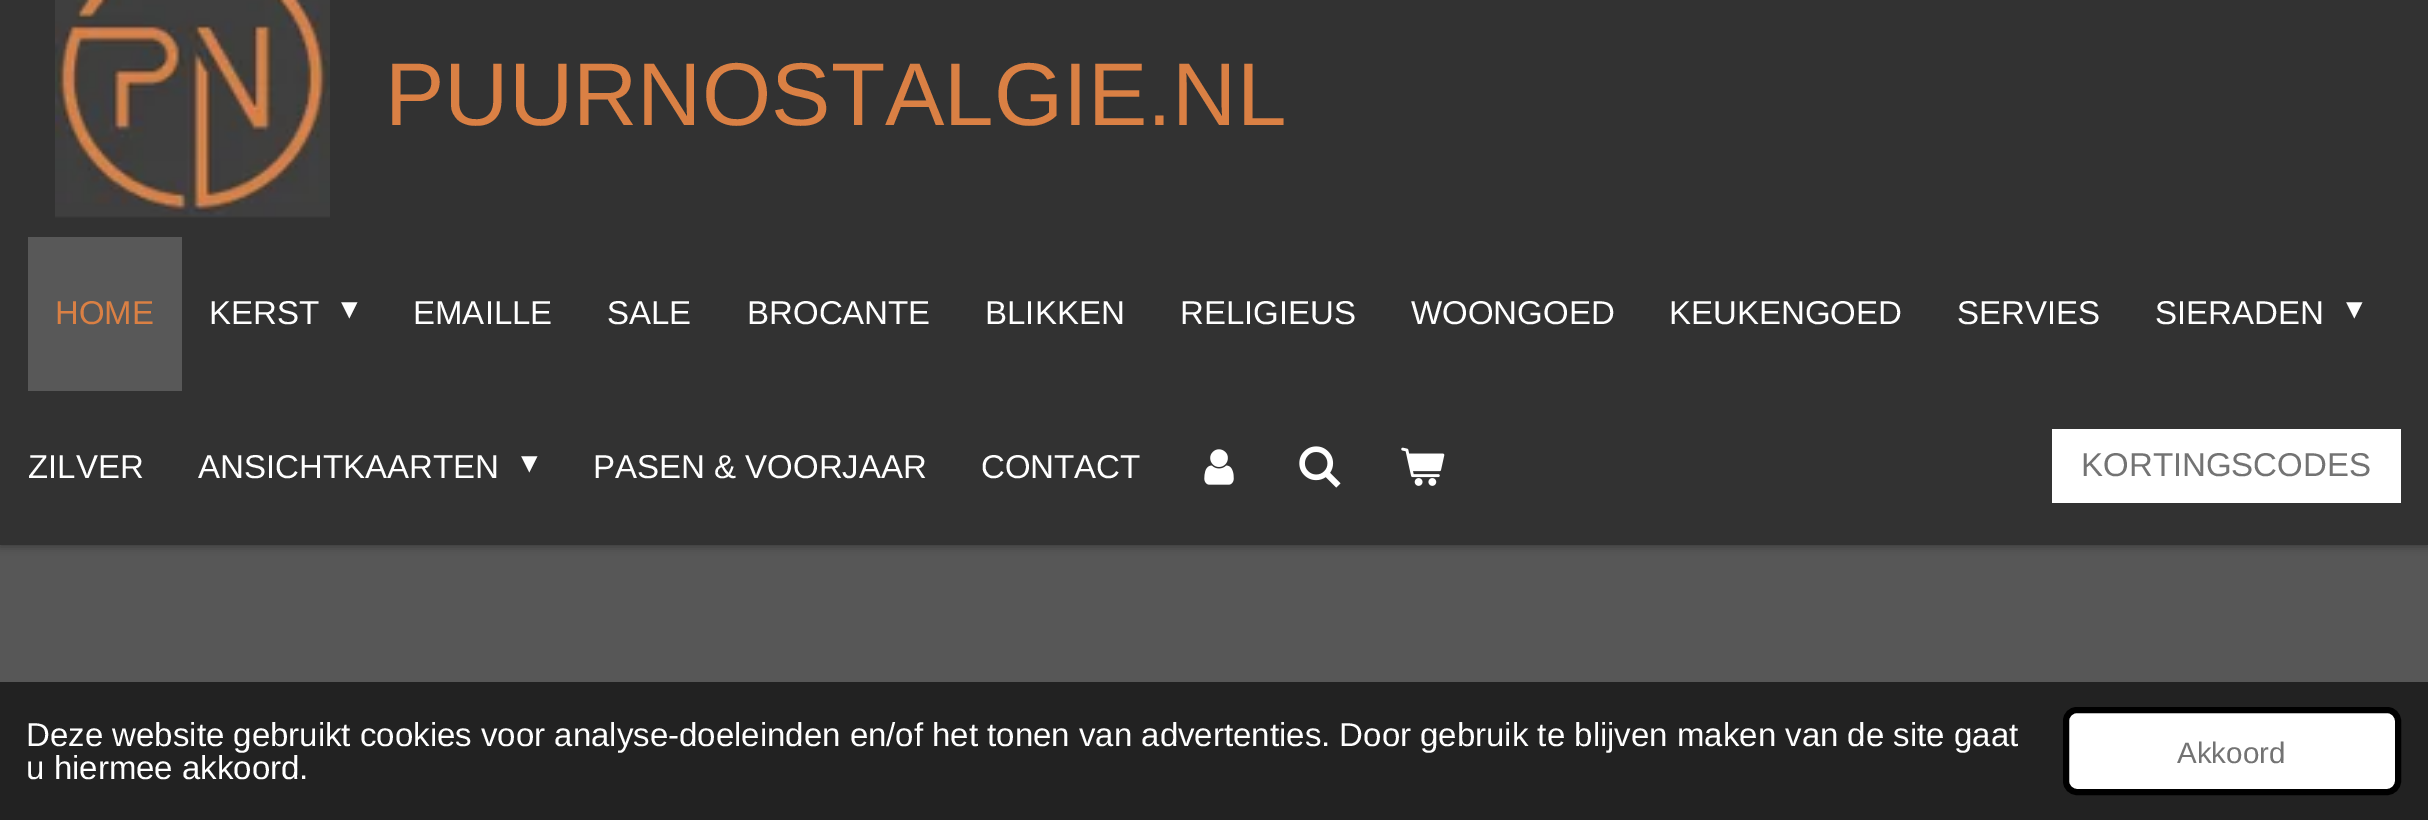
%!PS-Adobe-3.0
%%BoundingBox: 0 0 2428 820
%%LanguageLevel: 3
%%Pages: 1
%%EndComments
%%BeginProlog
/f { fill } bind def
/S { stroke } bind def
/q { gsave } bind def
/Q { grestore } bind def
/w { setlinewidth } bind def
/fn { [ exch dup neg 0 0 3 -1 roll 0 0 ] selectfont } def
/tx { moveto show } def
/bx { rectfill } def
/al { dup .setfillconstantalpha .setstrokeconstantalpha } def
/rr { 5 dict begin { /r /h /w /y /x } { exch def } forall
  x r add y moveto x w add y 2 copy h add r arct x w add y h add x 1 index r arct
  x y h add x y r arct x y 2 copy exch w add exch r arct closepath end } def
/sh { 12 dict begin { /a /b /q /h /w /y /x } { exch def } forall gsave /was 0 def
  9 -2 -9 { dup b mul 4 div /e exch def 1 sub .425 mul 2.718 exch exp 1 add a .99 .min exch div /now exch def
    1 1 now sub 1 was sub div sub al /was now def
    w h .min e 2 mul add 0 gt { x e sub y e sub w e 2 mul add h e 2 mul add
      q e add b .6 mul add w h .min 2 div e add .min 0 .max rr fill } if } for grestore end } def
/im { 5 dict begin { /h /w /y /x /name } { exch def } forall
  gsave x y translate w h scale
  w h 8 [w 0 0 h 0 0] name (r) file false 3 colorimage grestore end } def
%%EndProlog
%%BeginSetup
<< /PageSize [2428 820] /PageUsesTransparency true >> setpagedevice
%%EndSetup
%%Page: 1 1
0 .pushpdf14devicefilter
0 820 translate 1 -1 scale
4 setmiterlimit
0.341 setgray
0 0 2428 820 bx
0 setgray
0 -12 2428 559 0 4 0.3 sh
0.196 setgray
0 0 2428 545 bx
(image0.raw) 55 0 275 218 im
/LiberationSans-Regular 89.1 fn
0.855 0.502 0.267 setrgbcolor
(PUURNOSTALGIE.NL) 385 125 tx
0.345 setgray
28 237 154 154 bx
/LiberationSans-Regular 33 fn
0.855 0.502 0.267 setrgbcolor
(HOME) 55 324 tx
1 setgray
(KERST) 209 324 tx
/DejaVuSans-Regular 33 fn
(▾) 341 319 tx
/LiberationSans-Regular 33 fn
(EMAILLE) 413 324 tx
(SALE) 607 324 tx
(BROCANTE) 747 324 tx
(BLIKKEN) 985 324 tx
(RELIGIEUS) 1180 324 tx
(WOONGOED) 1411 324 tx
(KEUKENGOED) 1669 324 tx
(SERVIES) 1957 324 tx
(SIERADEN) 2155 324 tx
/DejaVuSans-Regular 33 fn
(▾) 2346 319 tx
/LiberationSans-Regular 33 fn
(ZILVER) 28 478 tx
(ANSICHTKAARTEN) 198 478 tx
/DejaVuSans-Regular 33 fn
(▾) 521 473 tx
/LiberationSans-Regular 33 fn
(PASEN & VOORJAAR) 593 478 tx
(CONTACT) 981 478 tx
(image1.raw) 1204 449 30 36 im
(image2.raw) 1299 446 42 42 im
(image3.raw) 1401 447 44 39 im
2052 429 349 74 bx
0.451 setgray
(KORTINGSCODES) 2081 476 tx
0.133 setgray
0 682 2428 138 bx
1 setgray
(Deze website gebruikt cookies voor analyse-doeleinden en/of het tonen van advertenties. Door gebruik te blijven maken van de site gaat) 26 746 tx
(u hiermee akkoord.) 26 779 tx
2066 710 332 82 11 rr q f Q
0 setgray
6 w
S
/LiberationSans-Regular 29.5 fn
0.451 setgray
(Akkoord) 2177 763 tx
.poppdf14devicefilter showpage
%%EOF
